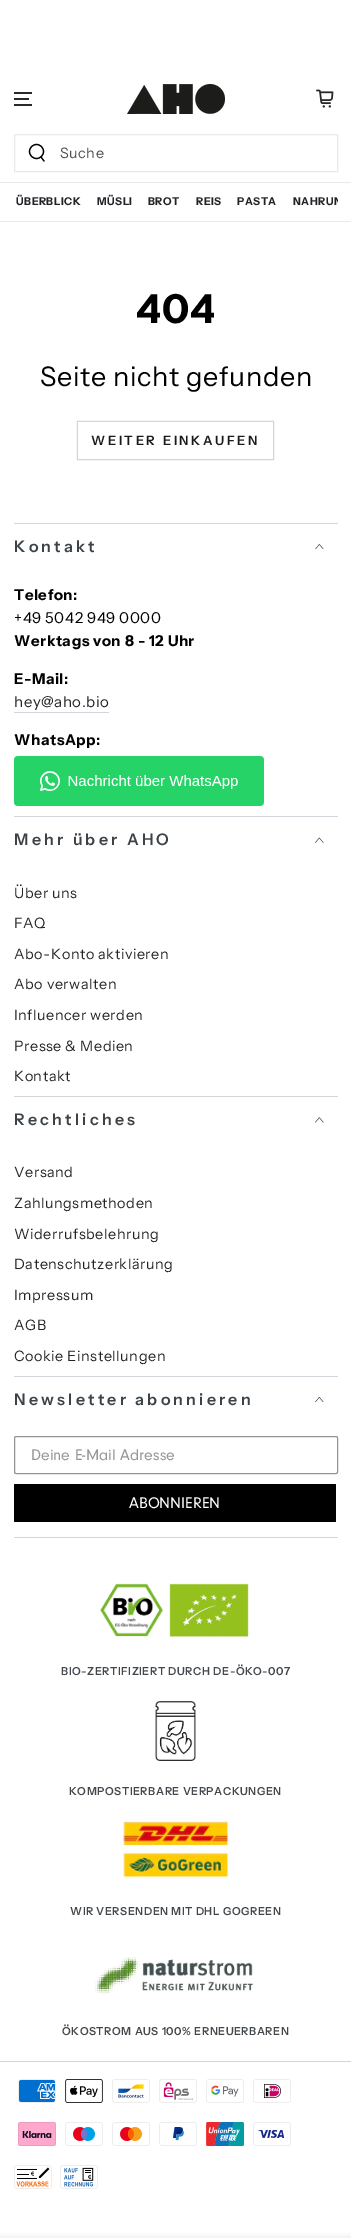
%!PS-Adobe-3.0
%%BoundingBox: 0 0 351 2238
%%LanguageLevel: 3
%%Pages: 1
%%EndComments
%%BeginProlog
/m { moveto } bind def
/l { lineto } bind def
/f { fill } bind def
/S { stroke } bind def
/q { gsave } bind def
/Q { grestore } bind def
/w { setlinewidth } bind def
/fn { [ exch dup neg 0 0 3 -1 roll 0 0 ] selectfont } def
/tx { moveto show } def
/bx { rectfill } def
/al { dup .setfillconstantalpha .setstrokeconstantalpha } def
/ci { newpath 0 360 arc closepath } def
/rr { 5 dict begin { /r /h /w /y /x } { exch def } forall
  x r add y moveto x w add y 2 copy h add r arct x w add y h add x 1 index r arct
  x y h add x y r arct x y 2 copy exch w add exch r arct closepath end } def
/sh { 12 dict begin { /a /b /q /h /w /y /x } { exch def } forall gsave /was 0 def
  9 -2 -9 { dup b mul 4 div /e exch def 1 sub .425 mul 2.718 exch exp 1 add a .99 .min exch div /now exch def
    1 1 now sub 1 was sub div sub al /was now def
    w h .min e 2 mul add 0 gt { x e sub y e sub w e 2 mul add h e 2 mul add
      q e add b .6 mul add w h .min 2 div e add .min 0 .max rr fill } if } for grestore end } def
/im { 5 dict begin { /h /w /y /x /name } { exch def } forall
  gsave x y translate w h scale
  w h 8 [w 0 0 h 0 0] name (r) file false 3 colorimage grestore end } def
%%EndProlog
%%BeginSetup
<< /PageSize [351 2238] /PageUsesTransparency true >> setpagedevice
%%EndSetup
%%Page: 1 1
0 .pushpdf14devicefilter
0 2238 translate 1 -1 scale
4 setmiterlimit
1 setgray
0 0 351 2238 bx
0.91 0.914 0.922 setrgbcolor
0 182 351 1 bx
0.157 setgray
1.7 w
14 105 m 32 105 l 14 99 m 29 99 l 14 93 m 32 93 l S
(image0.raw) 127 84 98 30 im
(image1.raw) 316 89 18 19 im
0.91 0.914 0.922 setrgbcolor
1 w
14.5 134.5 323 37 rectstroke
0 setgray
1.2 w
36.5 151.5 7 ci S
1 setlinecap
41 157 m 44 161 l S
/InstrumentSans-Regular 14.4 fn
0.302 setgray
60 158 m 0.5 0 (Suche) ashow
0.91 0.914 0.922 setrgbcolor
0 221 351 1 bx
/InstrumentSans-Bold 10.75 fn
0.129 0.137 0.149 setrgbcolor
16 205 m 0.5 0 (ÜBERBLICK) ashow
97 205 m 0.5 0 (MÜSLI) ashow
148 205 m 0.5 0 (BROT) ashow
196 205 m 0.5 0 (REIS) ashow
237 205 m 0.5 0 (PASTA) ashow
q
3 183 335 38 rectclip
293 205 m 0.5 0 (NAHRUN) ashow
Q
/InstrumentSans-Bold 40 fn
0 setgray
136 323 m 0.7 0 (404) ashow
/InstrumentSans-Regular 27 fn
40 386 m 0.7 0 (Seite nicht gefunden) ashow
0.824 0.835 0.851 setrgbcolor
0.9 w
0 setlinecap
77.45 421.45 196.1 38.1 rectstroke
/InstrumentSans-SemiBold 13 fn
0.102 0.106 0.094 setrgbcolor
91 445 m 2.6 0 (WEITER EINKAUFEN) ashow
0.824 0.835 0.851 setrgbcolor
14 523 324 1 bx
14 816 324 1 bx
/InstrumentSans-SemiBold 16 fn
0.239 0.259 0.275 setrgbcolor
14 552 m 3.2 0 (Kontakt) ashow
(image2.raw) 315 544 9 5 im
/InstrumentSans-Bold 15 fn
0 setgray
14 600 m 0.55 0 (Telefon:) ashow
/InstrumentSans-Regular 15 fn
14 623 m 0.55 0 (+49 5042 949 0000) ashow
/InstrumentSans-Bold 15 fn
14 646 m 0.55 0 (Werktags von 8 - 12 Uhr) ashow
14 684 m 0.55 0 (E-Mail:) ashow
/InstrumentSans-Regular 15 fn
0.129 0.137 0.149 setrgbcolor
14 707 m 0.55 0 (hey@aho.bio) ashow
0.824 0.835 0.851 setrgbcolor
14 712 95 1 bx
/InstrumentSans-Bold 15 fn
0 setgray
14 745 m 0.55 0 (WhatsApp:) ashow
(image3.raw) 14 756 250 50 im
0.824 0.835 0.851 setrgbcolor
14 1096 324 1 bx
/InstrumentSans-SemiBold 16 fn
0.239 0.259 0.275 setrgbcolor
14 845 m 3.2 0 (Mehr über AHO) ashow
(image4.raw) 315 837 9 6 im
/InstrumentSans-Regular 14.4 fn
0.129 0.137 0.149 setrgbcolor
14 898 m 0.55 0 (Über uns) ashow
14 928 m 0.55 0 (FAQ) ashow
14 959 m 0.55 0 (Abo-Konto aktivieren) ashow
14 989 m 0.55 0 (Abo verwalten) ashow
14 1020 m 0.55 0 (Influencer werden) ashow
14 1051 m 0.55 0 (Presse & Medien) ashow
14 1081 m 0.55 0 (Kontakt) ashow
0.824 0.835 0.851 setrgbcolor
14 1376 324 1 bx
/InstrumentSans-SemiBold 16 fn
0.239 0.259 0.275 setrgbcolor
14 1125 m 3.2 0 (Rechtliches) ashow
(image5.raw) 315 1117 9 6 im
/InstrumentSans-Regular 14.4 fn
0.129 0.137 0.149 setrgbcolor
14 1177 m 0.55 0 (Versand) ashow
14 1208 m 0.55 0 (Zahlungsmethoden) ashow
14 1239 m 0.55 0 (Widerrufsbelehrung) ashow
14 1269 m 0.55 0 (Datenschutzerklärung) ashow
14 1300 m 0.55 0 (Impressum) ashow
14 1330 m 0.55 0 (AGB) ashow
14 1361 m 0.55 0 (Cookie Einstellungen) ashow
0.824 0.835 0.851 setrgbcolor
14 1537 324 1 bx
/InstrumentSans-SemiBold 16 fn
0.239 0.259 0.275 setrgbcolor
14 1405 m 3.2 0 (Newsletter abonnieren) ashow
(image6.raw) 315 1397 9 5 im
0.58 0.584 0.588 setrgbcolor
1 w
14.5 1436.5 323 37 1.5 rr S
/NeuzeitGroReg-Regular 16 fn
(Deine E-Mail Adresse) 31 1460 tx
0 setgray
14 1484 322 38 1 rr f
1 setgray
(ABONNIEREN) 129 1508 tx
0.824 0.835 0.851 setrgbcolor
0 2061 351 1 bx
(image7.raw) 100 1583 149 54 im
/InstrumentSans-SemiBold 11 fn
0.259 0.278 0.298 setrgbcolor
61 1675 m 0.55 0 (BIO-ZERTIFIZIERT DURCH DE-ÖKO-007) ashow
(image8.raw) 155 1701 41 60 im
69 1795 m 0.55 0 (KOMPOSTIERBARE VERPACKUNGEN) ashow
(image9.raw) 122 1821 111 59 im
70 1915 m 0.55 0 (WIR VERSENDEN MIT DHL GOGREEN) ashow
(image10.raw) 95 1957 159 38 im
62 2035 m 0.55 0 (ÖKOSTROM AUS 100% ERNEUERBAREN) ashow
(image11.raw) 18 2079 38 24 im
(image12.raw) 65 2079 38 24 im
(image13.raw) 112 2079 38 24 im
(image14.raw) 159 2079 38 24 im
(image15.raw) 206 2079 38 24 im
(image16.raw) 253 2079 38 24 im
(image17.raw) 18 2122 38 24 im
(image18.raw) 65 2122 38 24 im
(image19.raw) 112 2122 38 24 im
(image20.raw) 159 2122 38 24 im
(image21.raw) 206 2122 38 24 im
(image22.raw) 253 2122 38 24 im
(image23.raw) 14 2165 38 24 im
(image24.raw) 60 2165 38 24 im
0 setgray
0 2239 351 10 0 3.5 0.15 sh
.poppdf14devicefilter showpage
%%EOF
